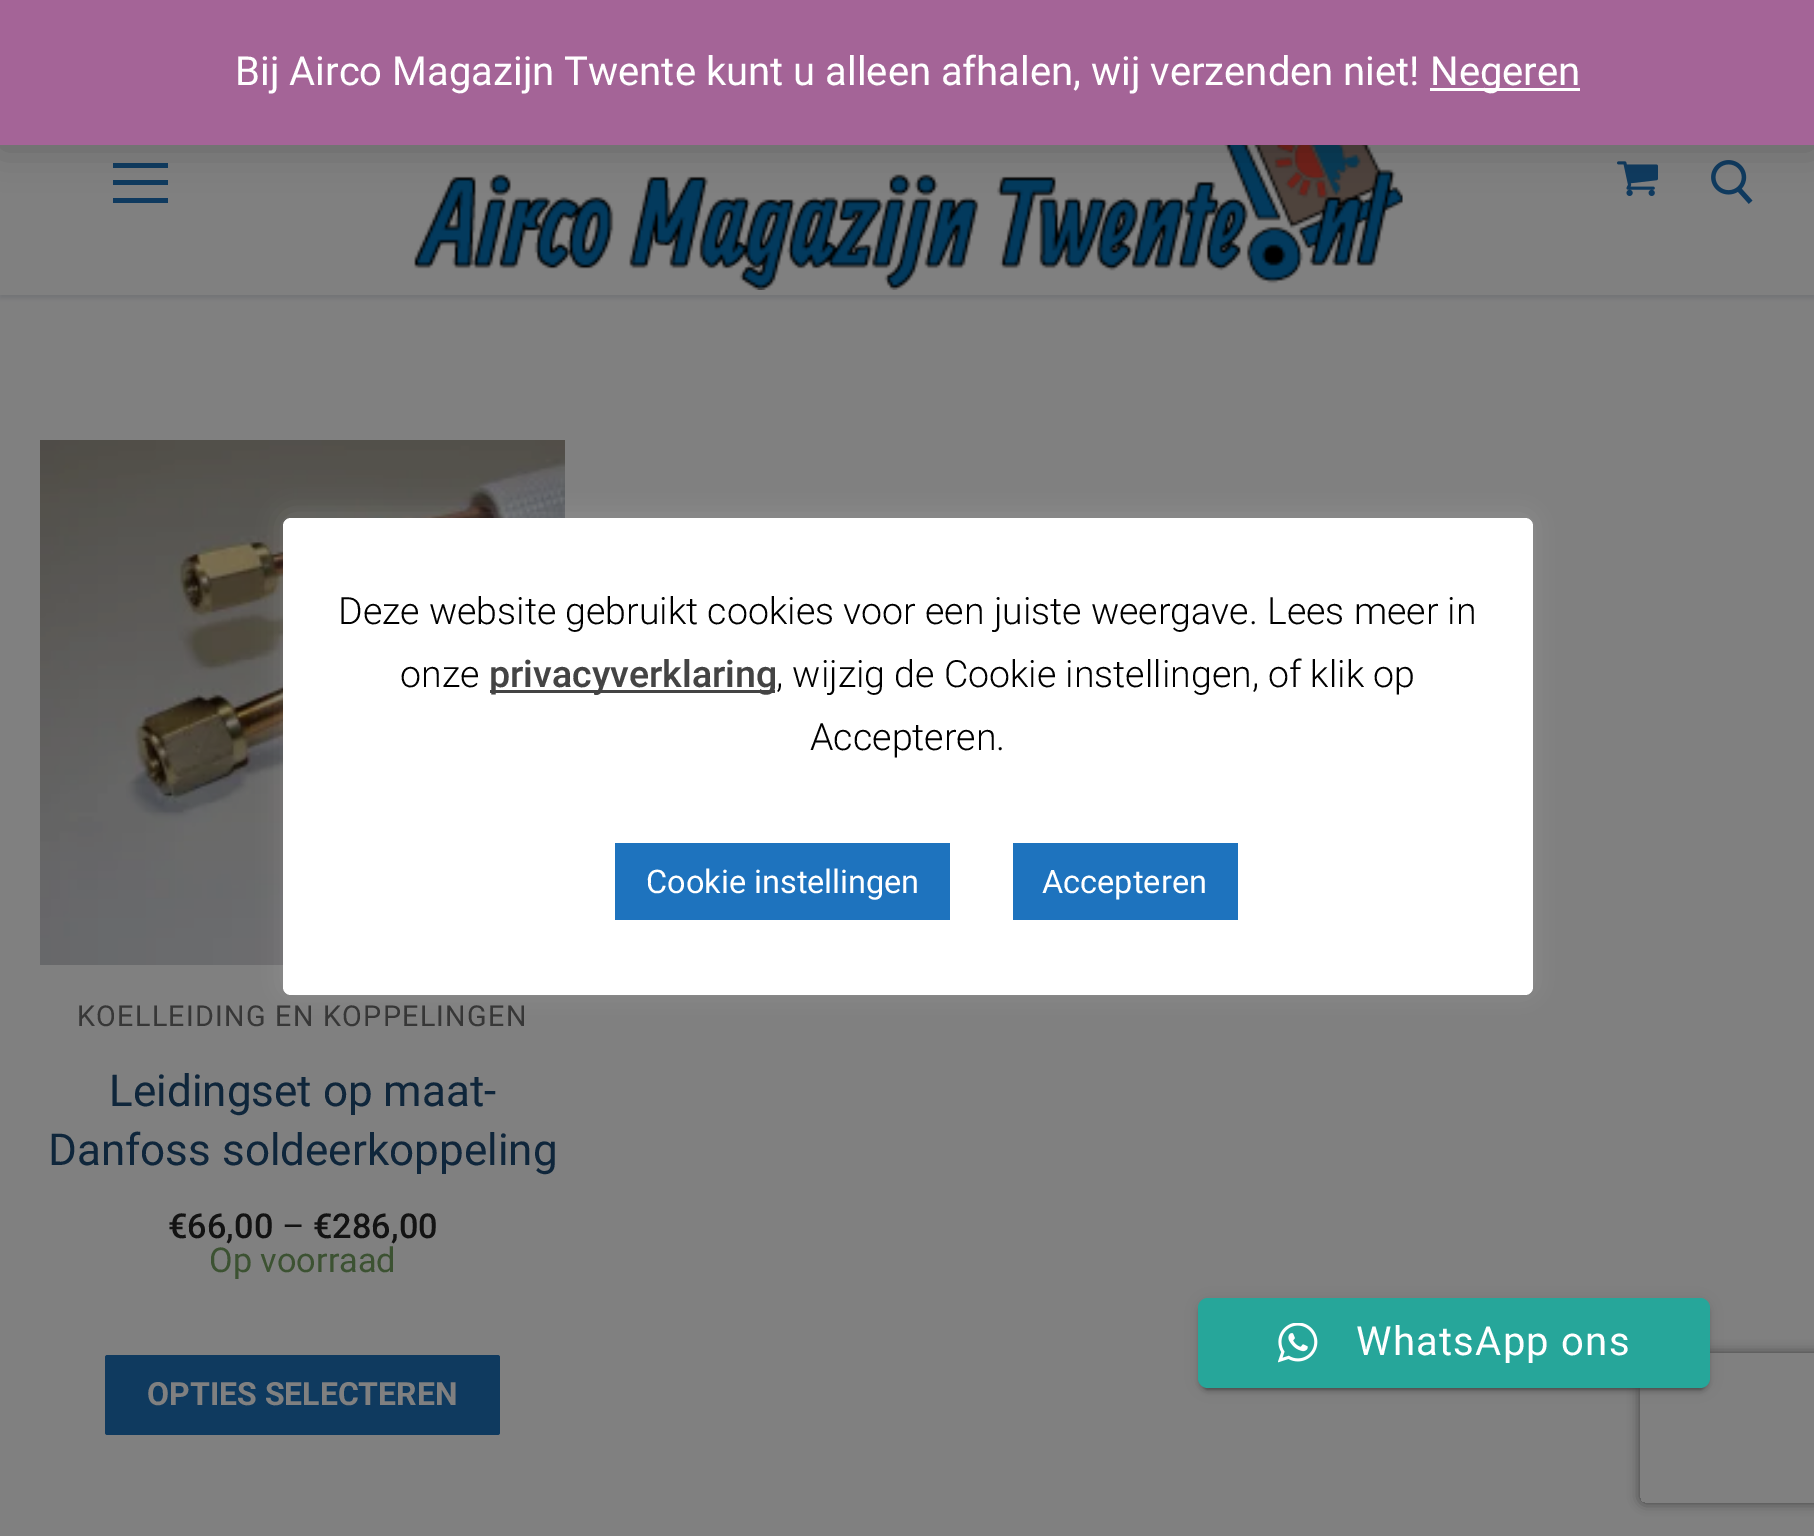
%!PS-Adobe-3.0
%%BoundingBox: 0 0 1814 1536
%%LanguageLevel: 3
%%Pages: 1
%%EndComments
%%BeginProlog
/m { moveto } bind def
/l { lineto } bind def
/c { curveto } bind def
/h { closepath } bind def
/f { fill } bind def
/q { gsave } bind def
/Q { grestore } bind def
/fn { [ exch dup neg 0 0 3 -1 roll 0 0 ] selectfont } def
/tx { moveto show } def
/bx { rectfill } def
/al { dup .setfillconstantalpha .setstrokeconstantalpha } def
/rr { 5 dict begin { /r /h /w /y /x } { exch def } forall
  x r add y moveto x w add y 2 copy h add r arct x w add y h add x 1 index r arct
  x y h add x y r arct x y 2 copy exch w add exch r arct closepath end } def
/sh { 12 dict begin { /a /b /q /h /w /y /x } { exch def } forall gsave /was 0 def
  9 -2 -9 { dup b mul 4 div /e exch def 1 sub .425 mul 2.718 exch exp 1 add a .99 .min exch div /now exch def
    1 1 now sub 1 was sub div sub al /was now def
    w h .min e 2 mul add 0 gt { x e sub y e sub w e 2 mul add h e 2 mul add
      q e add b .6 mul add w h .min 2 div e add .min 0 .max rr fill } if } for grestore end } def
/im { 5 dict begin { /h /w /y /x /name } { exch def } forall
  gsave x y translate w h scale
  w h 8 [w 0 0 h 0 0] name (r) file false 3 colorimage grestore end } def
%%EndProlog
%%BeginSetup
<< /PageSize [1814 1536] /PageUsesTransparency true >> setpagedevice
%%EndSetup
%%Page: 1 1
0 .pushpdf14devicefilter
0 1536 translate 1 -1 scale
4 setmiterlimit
0.502 setgray
0 0 1814 1536 bx
q
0 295 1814 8 rectclip
0.443 0.451 0.459 setrgbcolor
0 73 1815 225 0 2.5 1 sh
Q
0.059 0.227 0.373 setrgbcolor
113 180 55 5 bx
113 163 55 5 bx
113 198 55 5 bx
(image0.raw) 414 145 989 145 im
(image1.raw) 1617 161 41 35 im
(image2.raw) 1711 160 42 44 im
0 setgray
0 3 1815 145 0 20 0.2 sh
0.643 0.392 0.592 setrgbcolor
0 0 1814 145 bx
/Roboto-Regular 40 fn
1 setgray
(Bij Airco Magazijn Twente kunt u alleen afhalen, wij verzenden niet!) 235 85 tx
1430 88 150 3 bx
(Negeren) 1430 85 tx
(image3.raw) 40 440 525 525 im
0.675 0.671 0.671 setrgbcolor
283 515 1250 478 8 12.5 0.3 sh
1 setgray
283 518 1250 477 8 rr f
/Roboto-Light 37.5 fn
0 setgray
(Deze website gebruikt cookies voor een juiste weergave. Lees meer in) 338 624 tx
(onze) 400 687 tx
0.267 setgray
490 690 285 3 bx
/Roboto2-Medium 37.5 fn
(privacyverklaring) 489 687 tx
/Roboto-Light 37.5 fn
0 setgray
(, wijzig de Cookie instellingen, of klik op) 776 687 tx
(Accepteren.) 810 750 tx
0.118 0.451 0.745 setrgbcolor
615 843 335 77 bx
/Roboto-Regular 32.5 fn
1 setgray
(Cookie instellingen) 646 893 tx
0.118 0.451 0.745 setrgbcolor
1013 843 225 77 bx
1 setgray
(Accepteren) 1042 893 tx
/Roboto-Regular 28.75 fn
0.216 setgray
77 1026 m 1.25 0 (KOELLEIDING EN KOPPELINGEN) ashow
/Roboto-Regular 44 fn
0.059 0.149 0.231 setrgbcolor
(Leidingset op maat-) 109 1106 tx
(Danfoss soldeerkoppeling) 48 1165 tx
/Roboto-Medium 34.25 fn
0.075 setgray
(€66,00) 168 1238 tx
/Roboto-Regular 34.25 fn
(–) 282 1238 tx
/Roboto-Medium 34.25 fn
(€286,00) 313 1238 tx
/Roboto-Regular 34.25 fn
0.235 0.322 0.196 setrgbcolor
(Op voorraad) 209 1272 tx
0.059 0.227 0.373 setrgbcolor
105 1355 395 80 2.5 rr f
/Roboto-Bold 32 fn
0.502 setgray
(OPTIES SELECTEREN) 147 1405 tx
0 setgray
1203 1310 502 80 5 1 0.2 sh
1198 1300 512 90 10 6 0.12 sh
1198 1303 512 90 10 2.5 0.14 sh
q
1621 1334 m 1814 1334 l 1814 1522 l 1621 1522 l h 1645 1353 m 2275 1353 l 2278 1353 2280 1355 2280 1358 c 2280 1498 l 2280 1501 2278 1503 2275 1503 c 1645 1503 l 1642 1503 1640 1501 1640 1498 c 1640 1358 l 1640 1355 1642 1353 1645 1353 c h eoclip newpath
0.251 setgray
1640 1353 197 150 5 6 1 sh
Q
0.149 0.651 0.604 setrgbcolor
1198 1298 512 90 10 rr f
(image4.raw) 1278 1323 40 40 im
/Roboto-Regular 40 fn
1 setgray
1356 1355 m 1.25 0 (WhatsApp ons) ashow
.poppdf14devicefilter showpage
%%EOF
